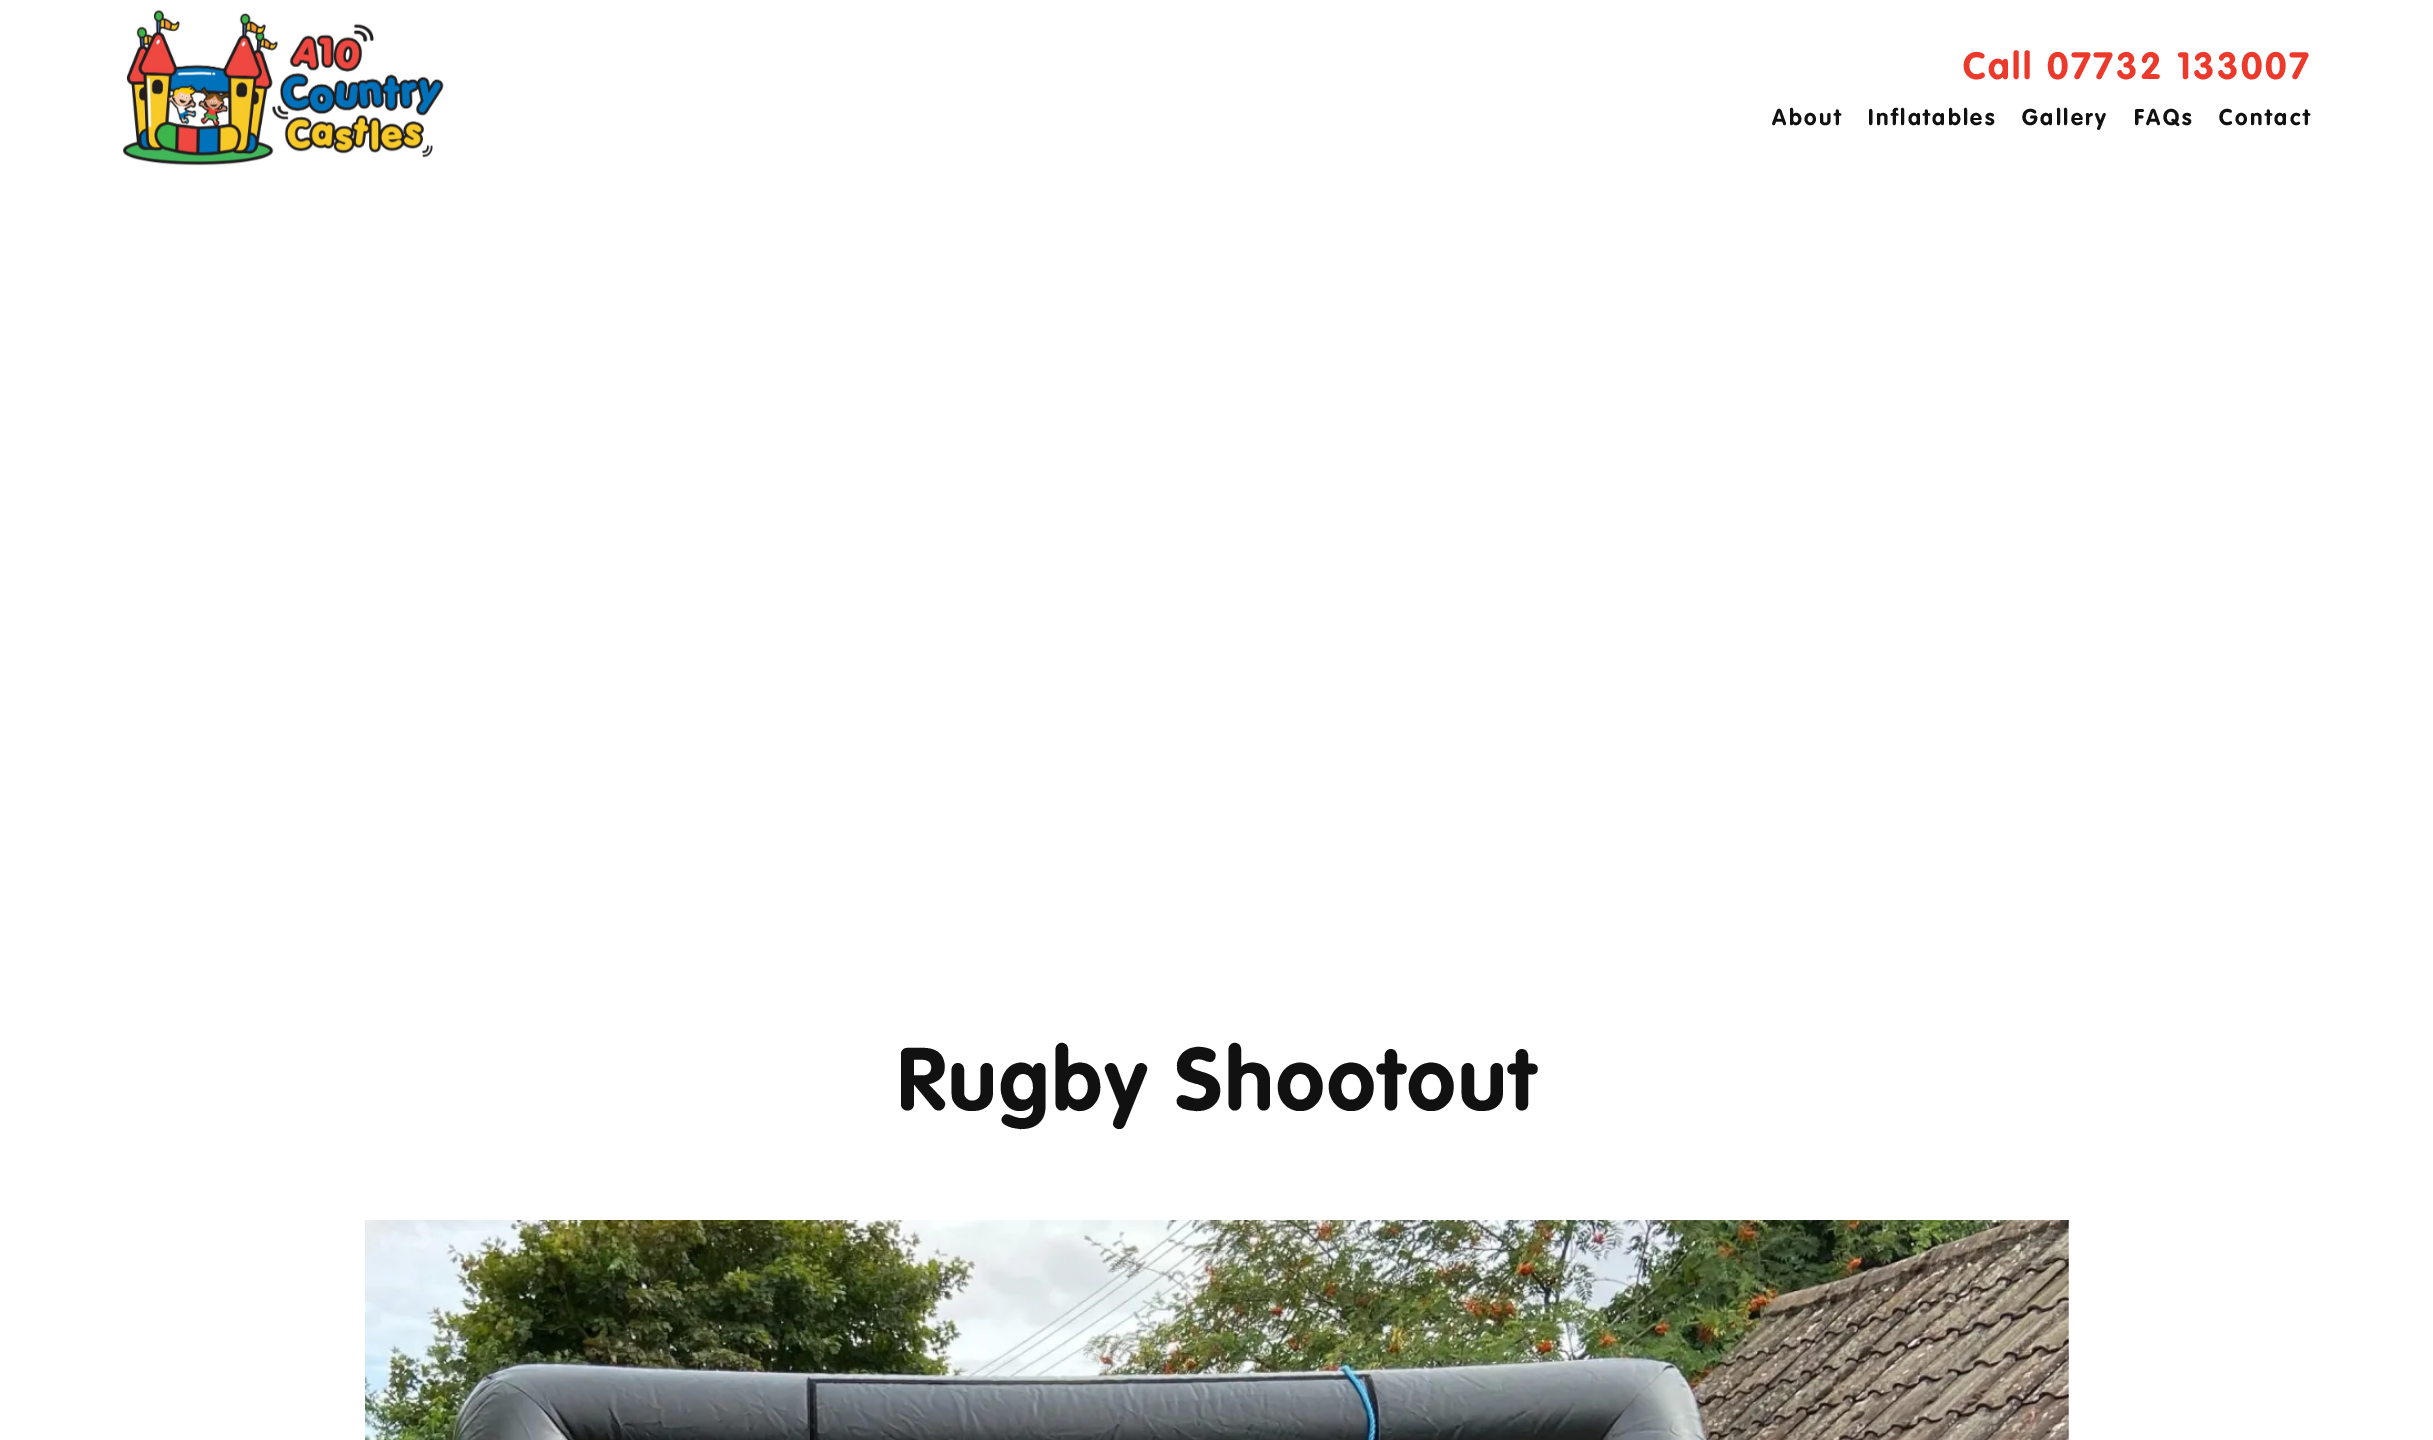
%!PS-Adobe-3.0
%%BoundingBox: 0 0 2433 1440
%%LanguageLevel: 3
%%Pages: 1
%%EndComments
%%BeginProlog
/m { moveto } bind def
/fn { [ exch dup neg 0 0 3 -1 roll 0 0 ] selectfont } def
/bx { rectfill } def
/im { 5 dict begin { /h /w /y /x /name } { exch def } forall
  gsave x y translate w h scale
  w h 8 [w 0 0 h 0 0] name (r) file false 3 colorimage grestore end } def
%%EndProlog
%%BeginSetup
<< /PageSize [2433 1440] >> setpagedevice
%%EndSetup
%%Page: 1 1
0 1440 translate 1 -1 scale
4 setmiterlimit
1 setgray
0 0 2433 1440 bx
(image0.raw) 123 9 321 157 im
/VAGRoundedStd-Bold 37.5 fn
0.922 0.227 0.173 setrgbcolor
1963 79 m 2.5 0 (Call 07732 133007) ashow
/VAGRoundedStd-Bold 22.5 fn
0.067 setgray
1772 125 m 2.5 0 (About) ashow
1868 125 m 2.5 0 (Inflatables) ashow
2022 125 m 2.5 0 (Gallery) ashow
2134 125 m 2.5 0 (FAQs) ashow
2219 125 m 2.5 0 (Contact) ashow
/VAGRoundedStd-Bold 87.5 fn
897 1110 m 2.5 0 (Rugby Shootout) ashow
(image1.raw) 365 1220 1704 220 im
showpage
%%EOF
